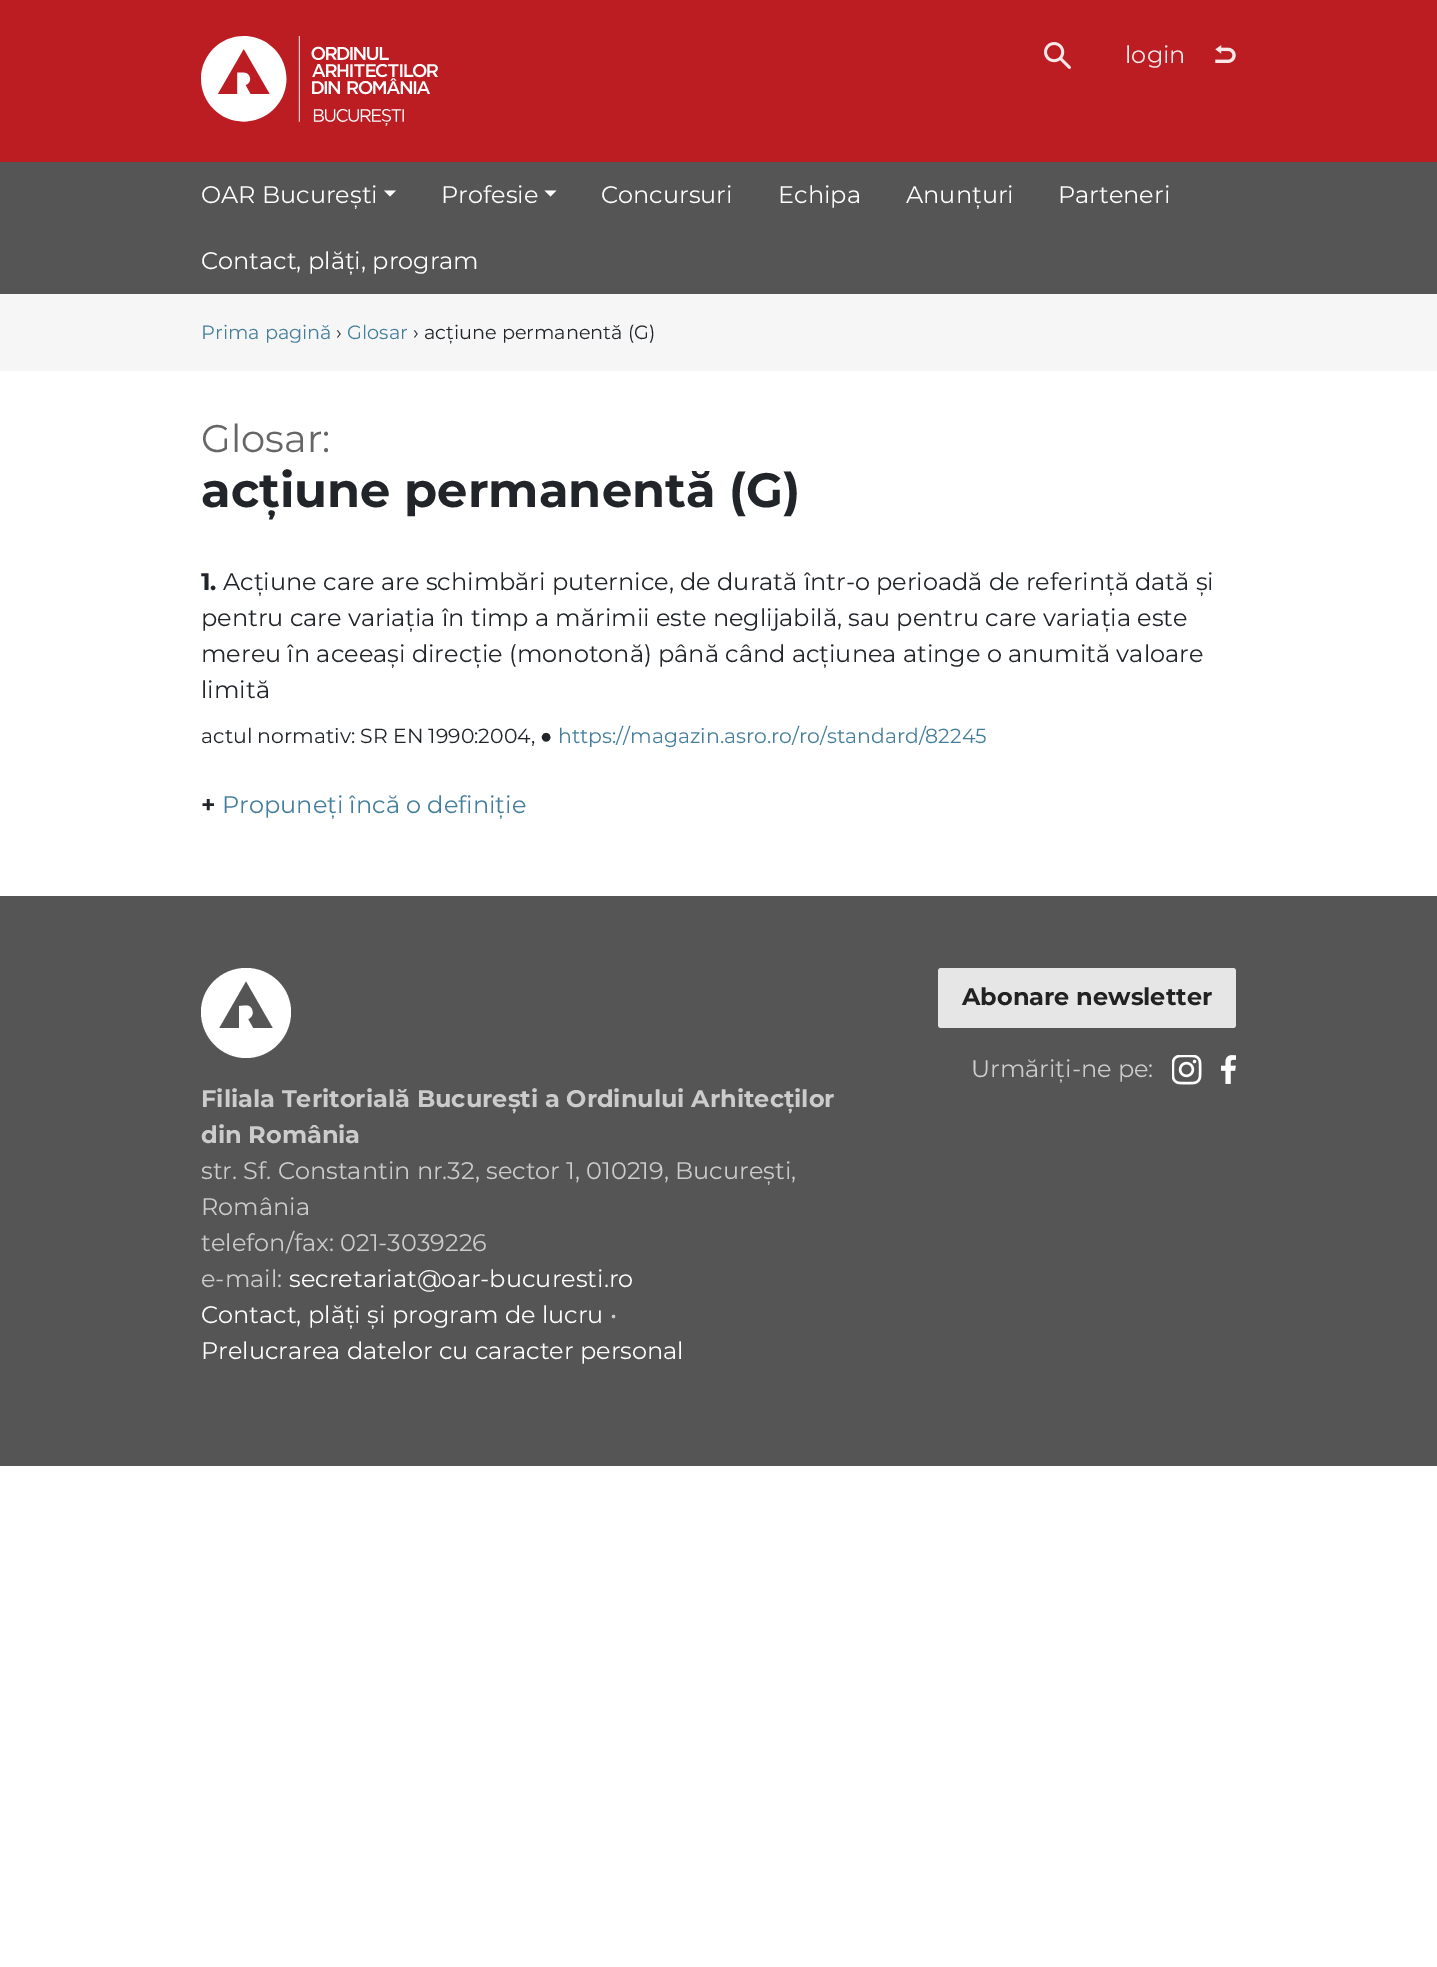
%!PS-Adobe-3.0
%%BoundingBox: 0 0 1437 1967
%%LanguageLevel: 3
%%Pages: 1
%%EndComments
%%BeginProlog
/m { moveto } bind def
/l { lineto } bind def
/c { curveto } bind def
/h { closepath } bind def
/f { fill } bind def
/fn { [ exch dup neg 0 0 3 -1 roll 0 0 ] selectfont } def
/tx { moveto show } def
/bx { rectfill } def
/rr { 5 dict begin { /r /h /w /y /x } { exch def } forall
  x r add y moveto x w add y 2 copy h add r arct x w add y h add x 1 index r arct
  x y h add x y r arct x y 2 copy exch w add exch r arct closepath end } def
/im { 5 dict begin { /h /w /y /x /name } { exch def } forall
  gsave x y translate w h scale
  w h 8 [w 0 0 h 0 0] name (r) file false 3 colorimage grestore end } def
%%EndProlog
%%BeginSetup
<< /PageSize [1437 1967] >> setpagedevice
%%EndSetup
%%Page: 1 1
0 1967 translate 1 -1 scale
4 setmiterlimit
1 setgray
0 0 1437 1967 bx
0.737 0.114 0.137 setrgbcolor
0 0 1437 162 bx
(image0.raw) 201 36 237 90 im
(image1.raw) 1044 42 27 27 im
/Montserrat-Regular 24 fn
0.973 0.91 0.914 setrgbcolor
(login) 1125 63 tx
(image2.raw) 1215 45 21 18 im
0.333 setgray
0 162 1437 132 bx
1 setgray
(OAR București) 201 203 tx
384 190.5 m 396 190.5 l 390 196.5 l h f
(Profesie) 441 203 tx
544.5 190.5 m 556.5 190.5 l 550.5 196.5 l h f
(Concursuri) 601 203 tx
(Echipa) 778 203 tx
(Anunțuri) 906 203 tx
(Parteneri) 1058 203 tx
(Contact, plăți, program) 201 269 tx
0.965 0.965 0.969 setrgbcolor
0 294 1437 77 bx
/Montserrat-Regular 19.25 fn
0.267 0.494 0.608 setrgbcolor
(Prima pagină) 201 339 tx
0.129 0.145 0.161 setrgbcolor
(›) 336 339 tx
0.267 0.494 0.608 setrgbcolor
(Glosar) 347 339 tx
0.129 0.145 0.161 setrgbcolor
(› acțiune permanentă \(G\)) 413 339 tx
/Montserrat-Regular 38.5 fn
0.4 setgray
(Glosar:) 201 452 tx
/Montserrat-Bold 48 fn
0.129 0.145 0.161 setrgbcolor
(acțiune permanentă \(G\)) 201 507 tx
/Montserrat-Bold 24 fn
(1.) 201 590 tx
/Montserrat-Regular 24 fn
(Acțiune care are schimbări puternice, de durată într-o perioadă de referință dată și) 223 590 tx
(pentru care variația în timp a mărimii este neglijabilă, sau pentru care variația este) 201 626 tx
(mereu în aceeași direcție \(monotonă\) până când acțiunea atinge o anumită valoare) 201 662 tx
(limită) 201 698 tx
/Montserrat-Regular 20.4 fn
(actul normativ: SR EN 1990:2004,) 201 743 tx
/LiberationSans-Regular 20.4 fn
(●) 540 743 tx
/Montserrat-Regular 20.4 fn
0.267 0.494 0.608 setrgbcolor
(https://magazin.asro.ro/ro/standard/82245) 558 743 tx
/Montserrat-Bold 24 fn
0.129 0.145 0.161 setrgbcolor
(+) 201 813 tx
/Montserrat-Regular 24 fn
0.267 0.494 0.608 setrgbcolor
(Propuneți încă o definiție) 222 813 tx
0.333 setgray
0 896 1437 570 bx
0.902 setgray
938 968 298 60 3 rr f
/Montserrat-Bold 24 fn
0.133 setgray
(Abonare newsletter) 962 1005 tx
/Montserrat-Regular 24 fn
0.8 setgray
(Urmăriți-ne pe:) 971 1077 tx
(image3.raw) 1172 1055 30 30 im
(image4.raw) 1221 1055 15 29 im
1 setgray
246 968 m 271 968 291 988 291 1012 c 291 1037 271 1058 246 1058 c 221 1058 201 1037 201 1012 c 201 988 221 968 246 968 c h 253 1028 m 248 1019 l 254 1017 254 1009 249 1006 c 246 1005 242 1006 239 1006 c 239 1028 l 219 1028 l 246 981 l 273 1028 l h eofill
/Montserrat-Bold 24 fn
0.8 setgray
(Filiala Teritorială București a Ordinului Arhitecților) 201 1107 tx
(din România) 201 1143 tx
/Montserrat-Regular 24 fn
(str. Sf. Constantin nr.32, sector 1, 010219, București,) 201 1179 tx
(România) 201 1215 tx
(telefon/fax: 021-3039226) 201 1251 tx
(e-mail:) 201 1287 tx
1 setgray
(secretariat@oar-bucuresti.ro) 289 1287 tx
(Contact, plăți și program de lucru) 201 1323 tx
0.8 setgray
(•) 610 1323 tx
1 setgray
(Prelucrarea datelor cu caracter personal) 201 1359 tx
showpage
%%EOF
